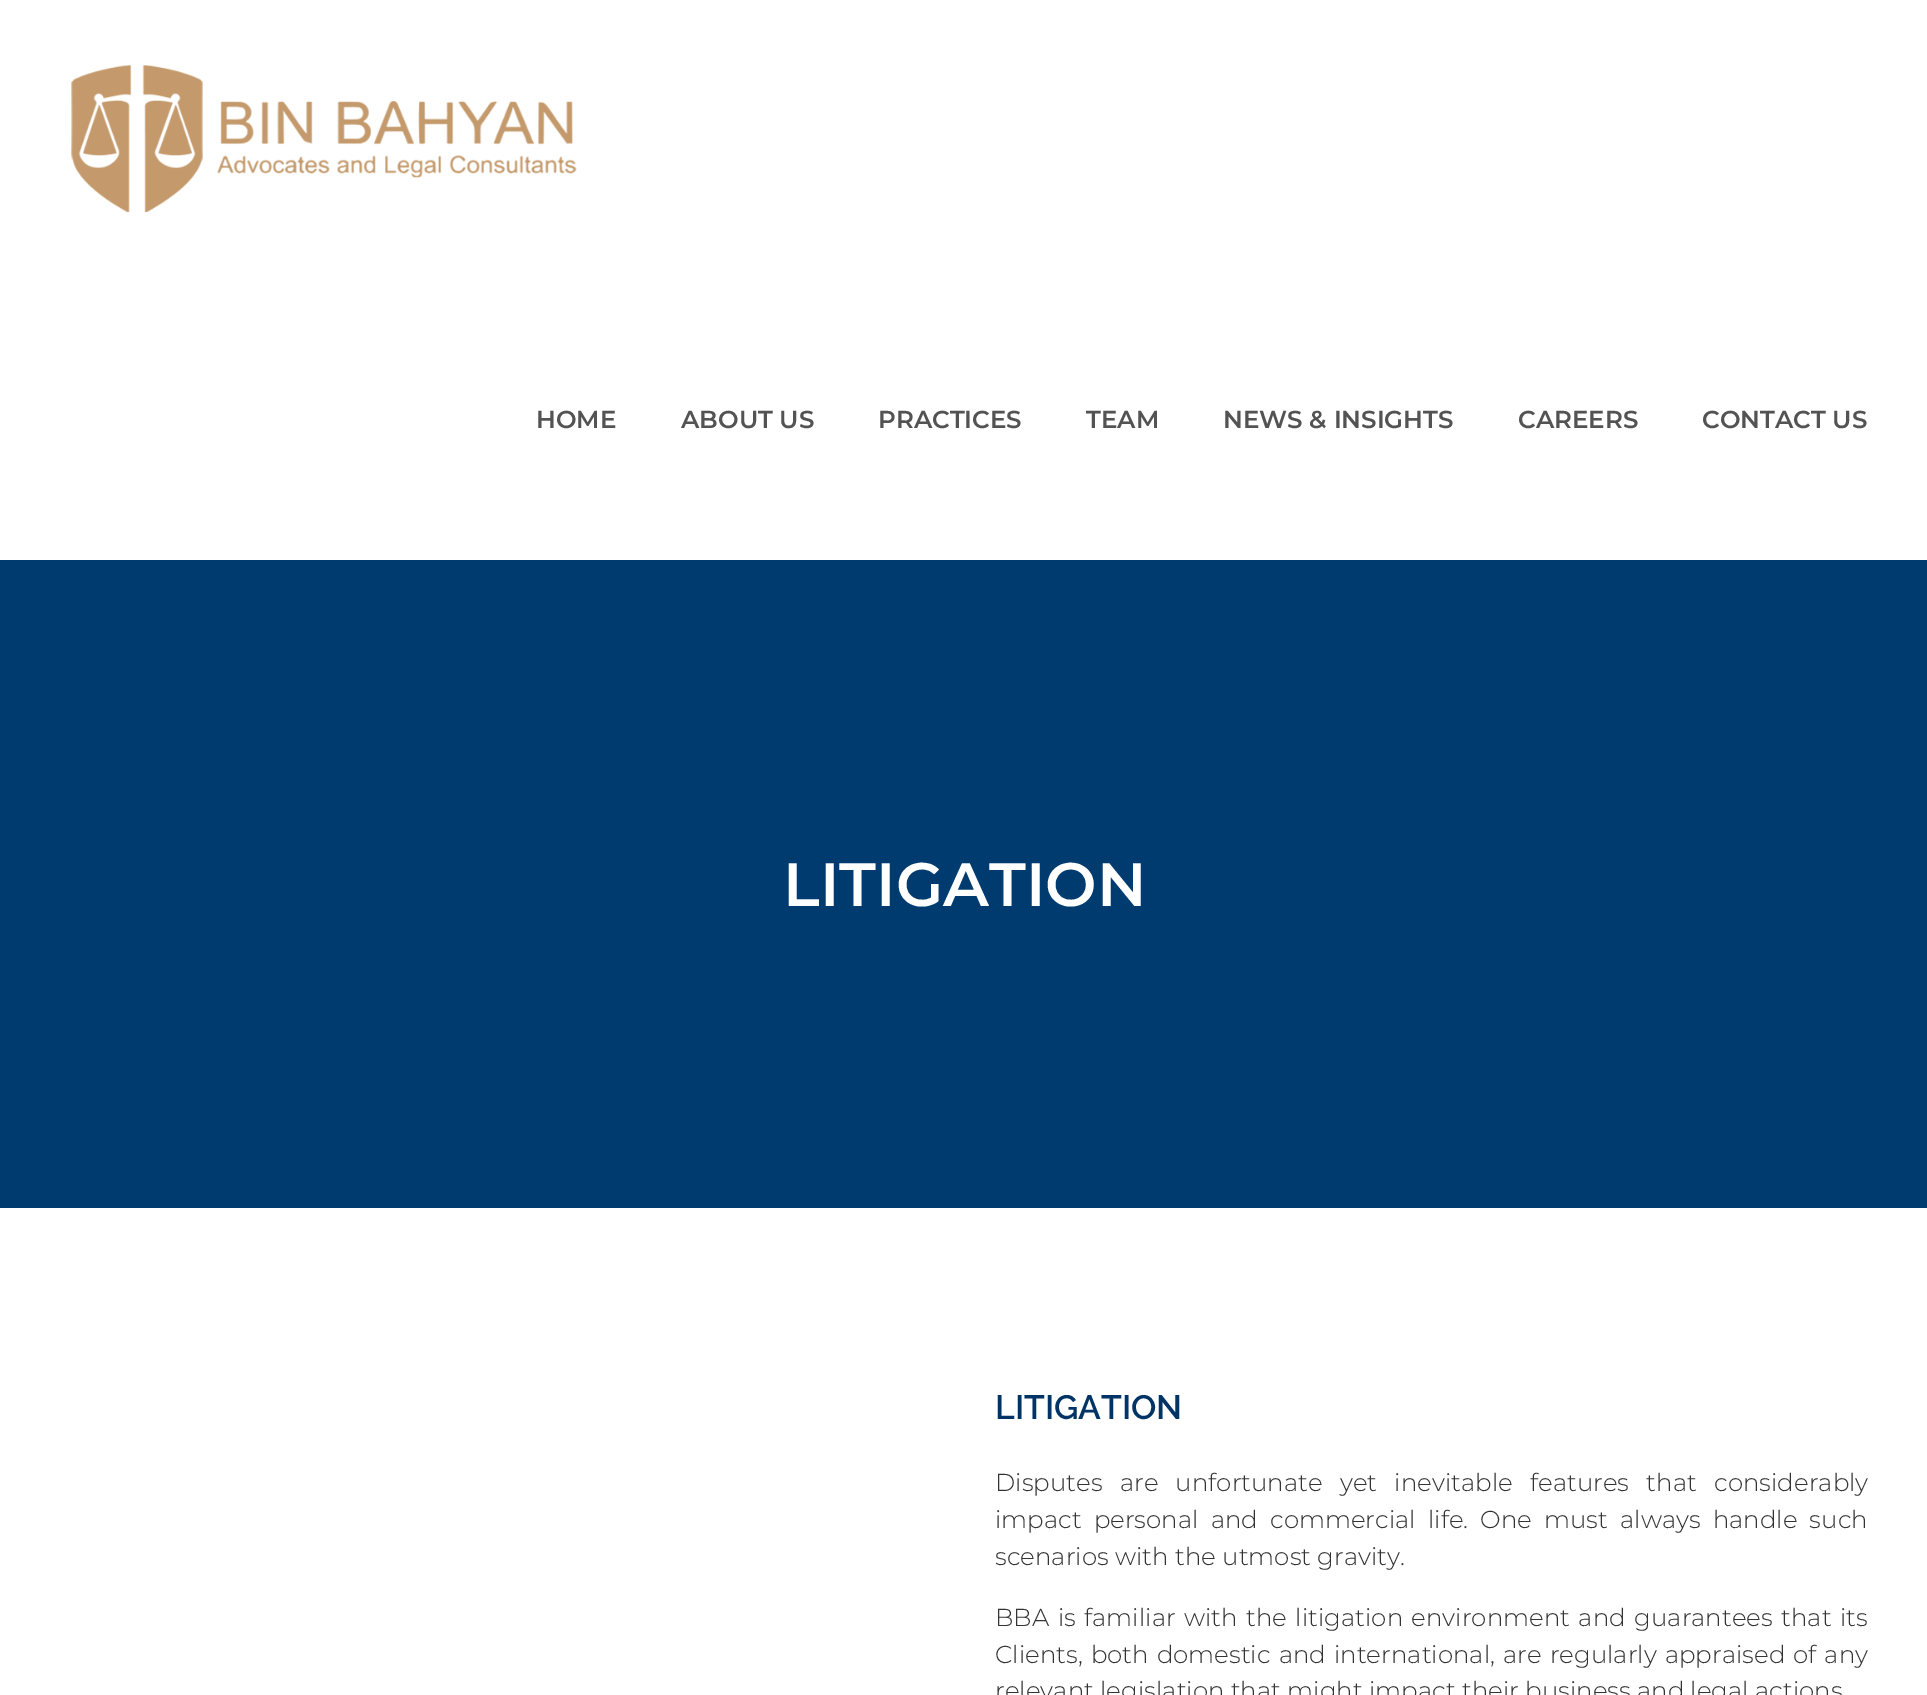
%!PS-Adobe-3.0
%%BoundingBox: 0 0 1927 1695
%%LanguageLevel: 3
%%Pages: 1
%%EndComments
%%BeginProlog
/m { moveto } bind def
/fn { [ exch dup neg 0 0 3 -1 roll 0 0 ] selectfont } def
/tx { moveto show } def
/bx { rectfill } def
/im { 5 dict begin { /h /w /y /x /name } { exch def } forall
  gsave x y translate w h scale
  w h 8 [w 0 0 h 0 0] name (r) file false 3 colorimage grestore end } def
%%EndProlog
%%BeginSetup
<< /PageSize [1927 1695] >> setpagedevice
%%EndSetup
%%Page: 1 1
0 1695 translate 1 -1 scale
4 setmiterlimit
1 setgray
0 0 1927 1695 bx
(image0.raw) 71 65 506 147 im
/Montserrat-SemiBold 24.5 fn
0.325 setgray
(HOME) 536 428 tx
(ABOUT US) 681 428 tx
(PRACTICES) 878 428 tx
(TEAM) 1086 428 tx
(NEWS & INSIGHTS) 1223 428 tx
(CAREERS) 1518 428 tx
(CONTACT US) 1702 428 tx
0 0.231 0.439 setrgbcolor
0 560 1927 648 bx
/Montserrat-SemiBold 61.25 fn
1 setgray
(LITIGATION) 783 906 tx
/Raleway-SemiBold 33.75 fn
0 0.2 0.4 setrgbcolor
(LITIGATION) 995 1419 tx
/Montserrat-Light 24.5 fn
0.2 setgray
995 1491 m 11 0 32 (Disputes are unfortunate yet inevitable features that considerably) widthshow
995 1528 m 5.75 0 32 (impact personal and commercial life. One must always handle such) widthshow
(scenarios with the utmost gravity.) 995 1565 tx
995 1626 m 2.1 0 32 (BBA is familiar with the litigation environment and guarantees that its) widthshow
995 1663 m 1.75 0 32 (Clients, both domestic and international, are regularly appraised of any) widthshow
(relevant legislation that might impact their business and legal actions) 995 1699 tx
showpage
%%EOF
